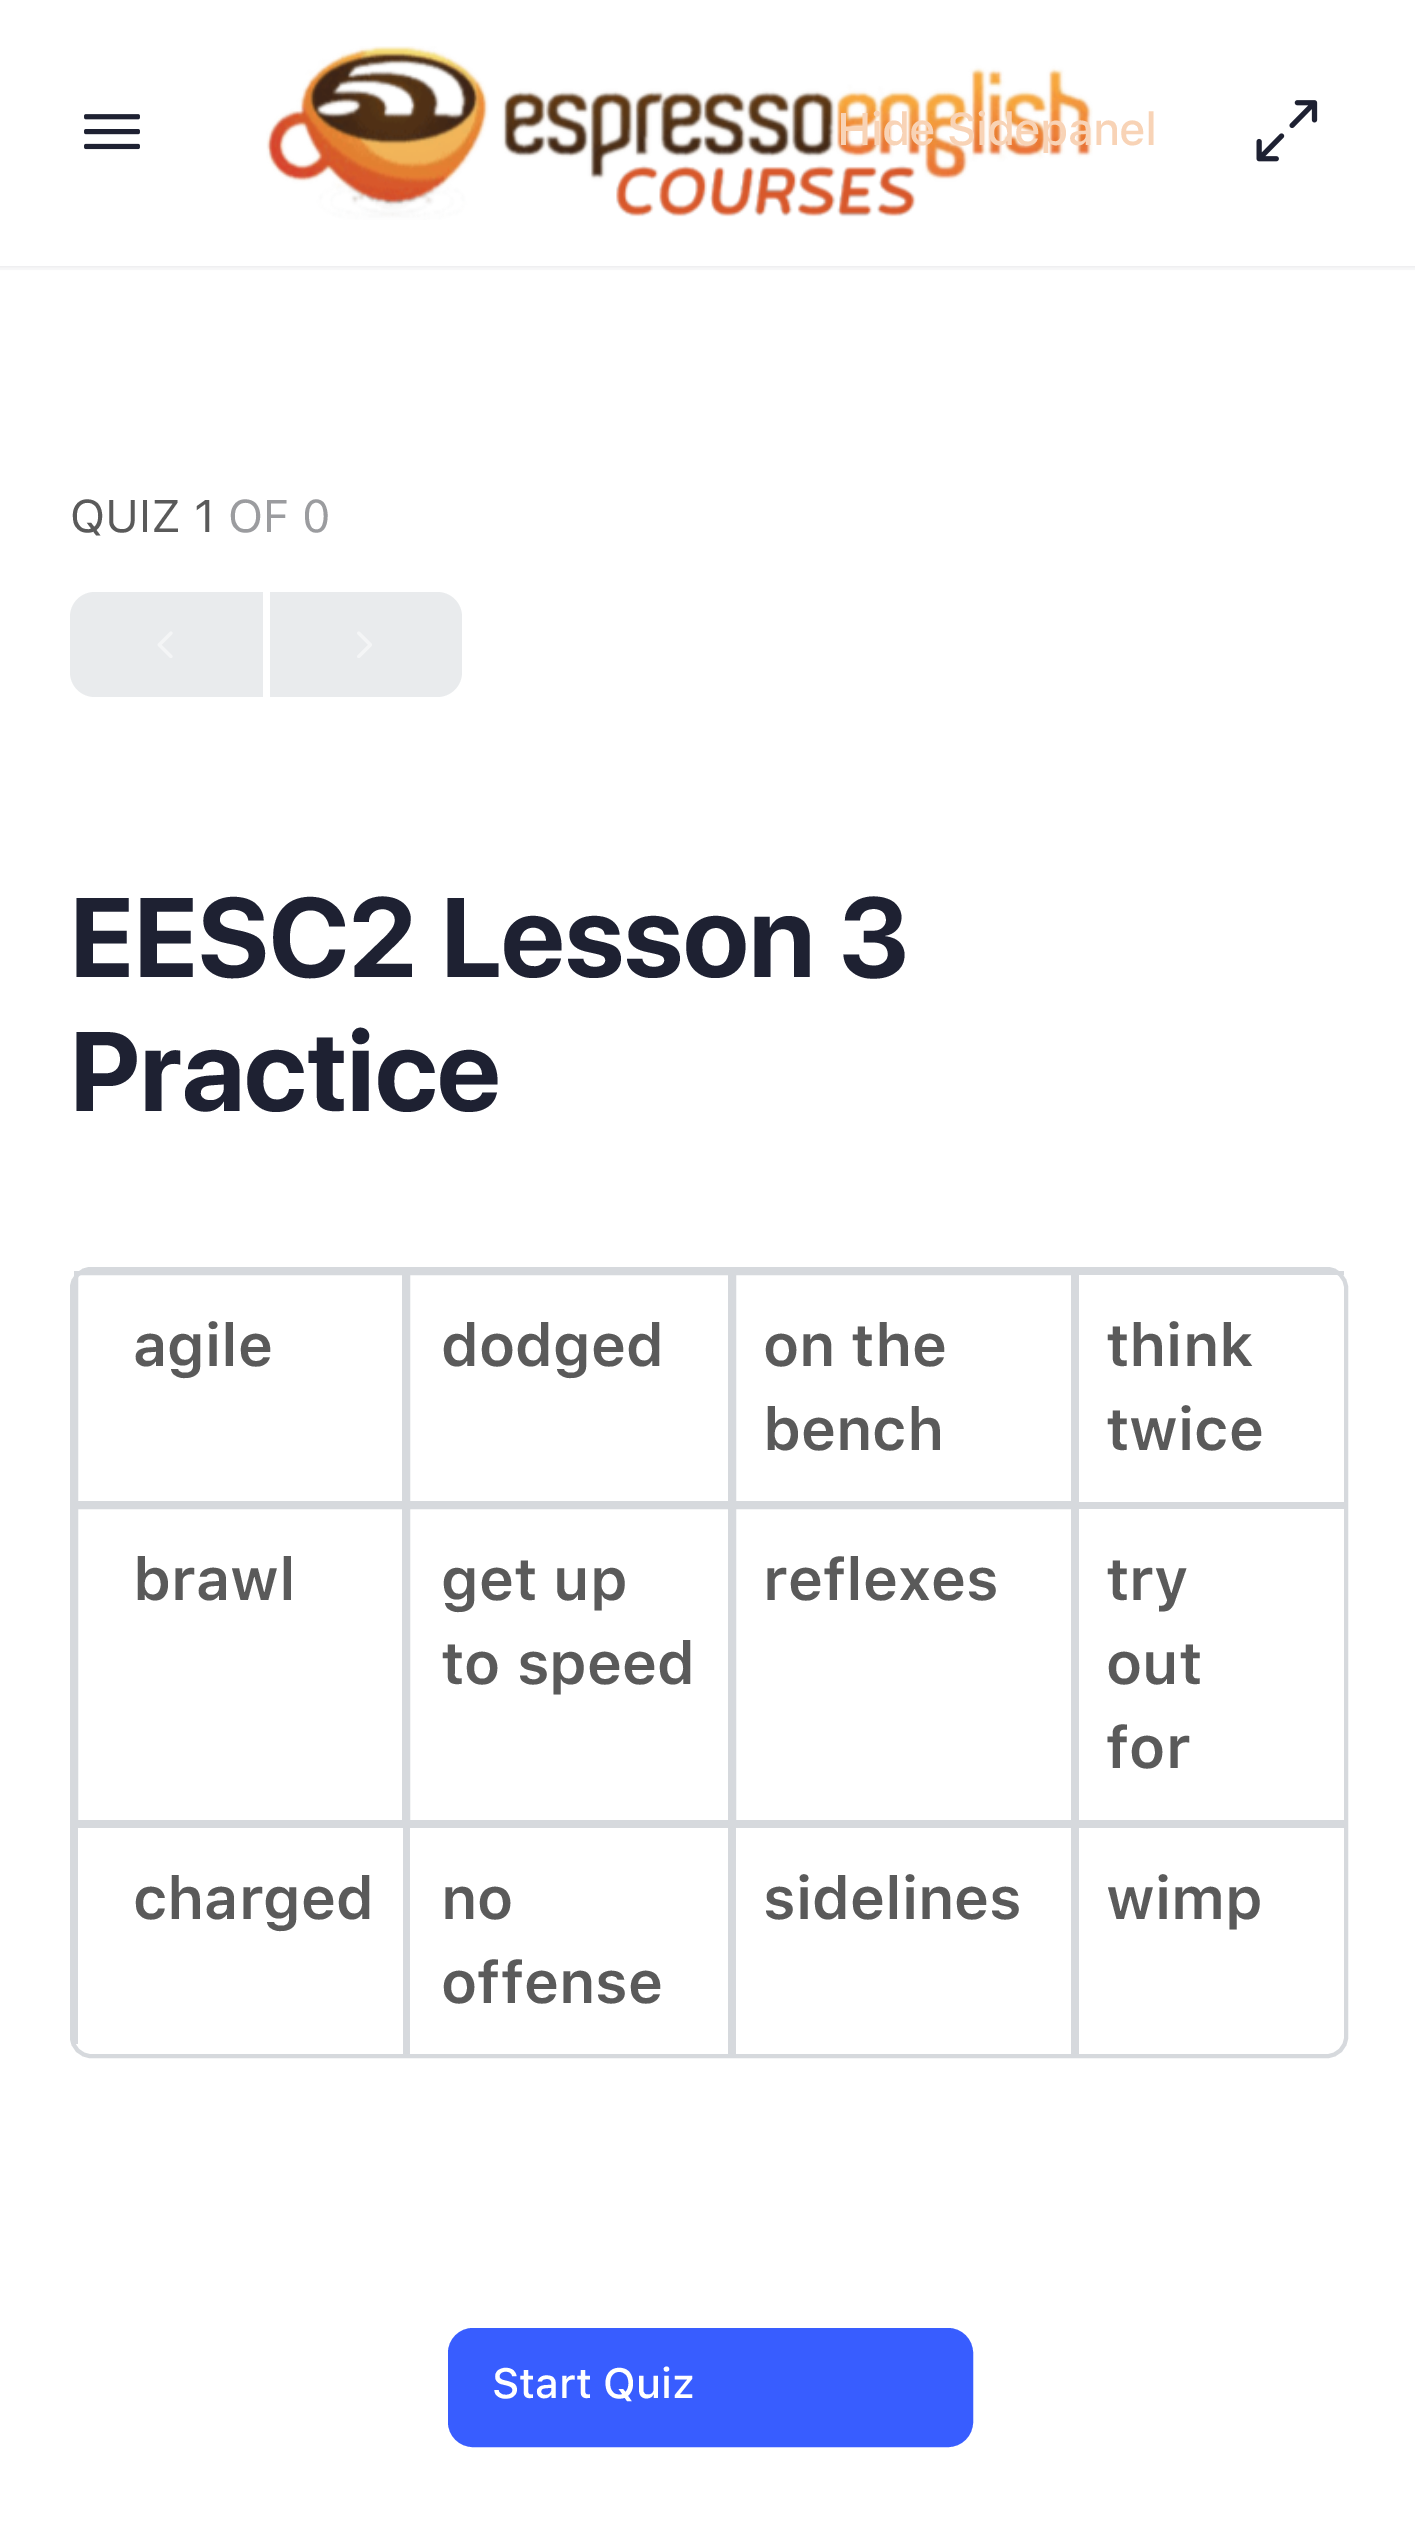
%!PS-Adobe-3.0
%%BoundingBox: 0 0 1415 2545
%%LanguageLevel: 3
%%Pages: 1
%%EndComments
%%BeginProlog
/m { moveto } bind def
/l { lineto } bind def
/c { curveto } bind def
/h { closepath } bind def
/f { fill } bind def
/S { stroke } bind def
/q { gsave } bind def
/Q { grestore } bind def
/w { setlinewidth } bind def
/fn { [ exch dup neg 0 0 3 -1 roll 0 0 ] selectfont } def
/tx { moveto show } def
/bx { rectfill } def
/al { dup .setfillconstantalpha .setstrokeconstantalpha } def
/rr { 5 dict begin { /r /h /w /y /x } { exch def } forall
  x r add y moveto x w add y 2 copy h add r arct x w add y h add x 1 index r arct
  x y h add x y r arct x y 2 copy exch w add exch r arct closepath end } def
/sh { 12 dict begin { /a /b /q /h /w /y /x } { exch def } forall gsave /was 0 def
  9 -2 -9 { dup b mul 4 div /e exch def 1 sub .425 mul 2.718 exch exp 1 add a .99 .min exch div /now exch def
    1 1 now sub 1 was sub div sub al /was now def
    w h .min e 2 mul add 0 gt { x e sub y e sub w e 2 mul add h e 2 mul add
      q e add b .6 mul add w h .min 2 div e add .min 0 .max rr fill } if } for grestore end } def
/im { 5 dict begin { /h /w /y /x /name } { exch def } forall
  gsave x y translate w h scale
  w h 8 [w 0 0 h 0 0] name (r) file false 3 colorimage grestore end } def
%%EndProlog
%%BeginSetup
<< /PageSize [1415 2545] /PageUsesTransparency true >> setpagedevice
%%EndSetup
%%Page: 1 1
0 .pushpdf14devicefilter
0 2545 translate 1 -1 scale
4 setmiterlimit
1 setgray
0 0 1415 2545 bx
0.255 0.278 0.424 setrgbcolor
0 0 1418 266 0 2 0.15 sh
0.05 al
0.545 0.553 0.616 setrgbcolor
0 266 m 0 270 l 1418 270 l 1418 4 l 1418 266 l h f
1 al
1 setgray
0 0 1415 266 bx
(image0.raw) 266 46 827 174 im
(image1.raw) 84 114 56 36 im
/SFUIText-Medium 45.5 fn
0.973 0.827 0.714 setrgbcolor
837 145 m -0.8 0 (Hide Sidepanel) ashow
(image2.raw) 1256 100 62 62 im
/SFUIText-Regular 45.5 fn
0.353 setgray
(QUIZ 1) 70 532 tx
0.608 0.612 0.624 setrgbcolor
(OF 0) 228 532 tx
0.914 0.922 0.929 setrgbcolor
95 592 m 263 592 l 263 697 l 95 697 l 81 697 70 686 70 672 c 70 617 l 70 603 81 592 95 592 c h f
(image3.raw) 157 631 16 27 im
270 592 m 437 592 l 451 592 462 603 462 617 c 462 672 l 462 686 451 697 437 697 c 270 697 l h f
(image4.raw) 357 631 15 27 im
/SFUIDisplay-Bold 112 fn
0.118 0.129 0.196 setrgbcolor
(EESC2 Lesson 3) 70 977 tx
(Practice) 70 1111 tx
0.839 0.851 0.867 setrgbcolor
4 w
72 1269 1274 787 19 rr S
76 1273 328 230 rectstroke
/SFUIText-SemiBold 59.5 fn
0.353 setgray
(agile) 133 1366 tx
0.839 0.851 0.867 setrgbcolor
408 1273 322 230 rectstroke
0.353 setgray
(dodged) 441 1366 tx
0.839 0.851 0.867 setrgbcolor
734 1273 339 230 rectstroke
0.353 setgray
(on the) 763 1366 tx
(bench) 763 1450 tx
0.839 0.851 0.867 setrgbcolor
1075 1271 269 4 bx
1075 1502 269 7 bx
1075 1271 4 234 bx
0.353 setgray
(think) 1106 1366 tx
(twice) 1106 1450 tx
0.839 0.851 0.867 setrgbcolor
76 1507 328 315 rectstroke
0.353 setgray
(brawl) 133 1600 tx
0.839 0.851 0.867 setrgbcolor
408 1507 322 315 rectstroke
0.353 setgray
(get up) 441 1600 tx
(to speed) 441 1684 tx
0.839 0.851 0.867 setrgbcolor
734 1507 339 315 rectstroke
0.353 setgray
(reflexes) 763 1600 tx
0.839 0.851 0.867 setrgbcolor
1075 1820 269 4 bx
1075 1505 4 319 bx
0.353 setgray
(try) 1106 1600 tx
(out) 1106 1684 tx
(for) 1106 1768 tx
0.839 0.851 0.867 setrgbcolor
74 1824 1270 4 bx
403 1824 7 231 bx
74 1824 4 220 bx
0.353 setgray
(charged) 133 1919 tx
0.839 0.851 0.867 setrgbcolor
728 1824 8 231 bx
0.353 setgray
(no) 441 1919 tx
(offense) 441 2003 tx
0.839 0.851 0.867 setrgbcolor
1071 1824 8 231 bx
0.353 setgray
(sidelines) 763 1919 tx
(wimp) 1106 1919 tx
0.22 0.365 1 setrgbcolor
450 2330 521 115 23 rr q f Q
S
/SFUIText-Medium 42 fn
1 setgray
(Start Quiz) 492 2398 tx
.poppdf14devicefilter showpage
%%EOF
